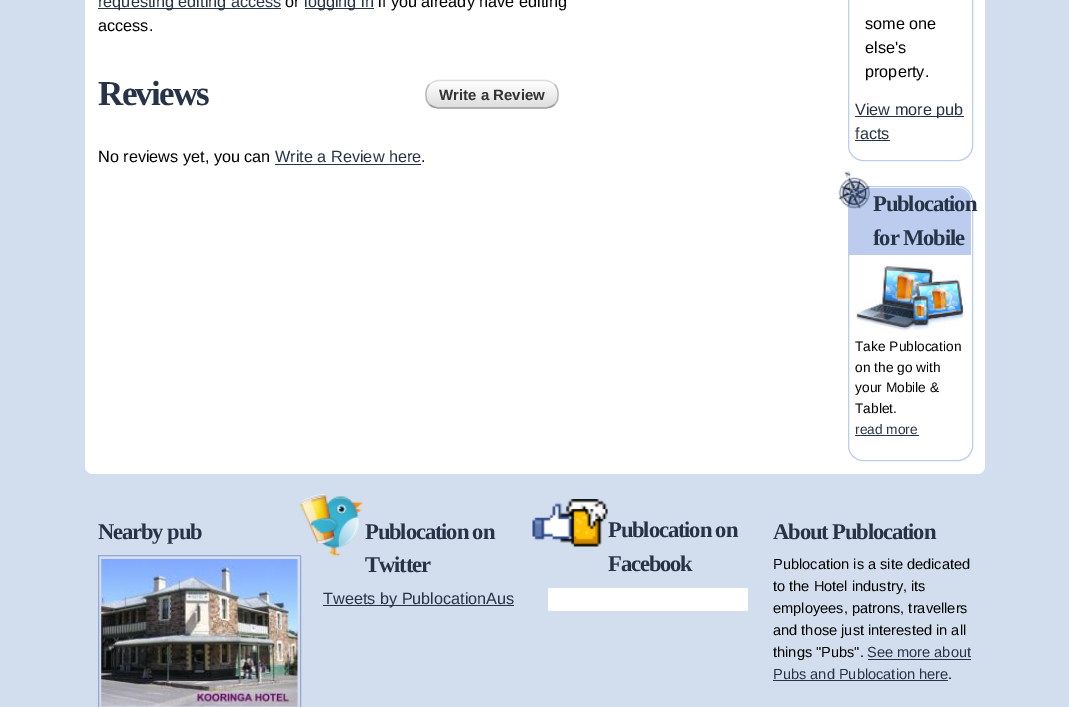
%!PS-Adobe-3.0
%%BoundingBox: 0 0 1069 707
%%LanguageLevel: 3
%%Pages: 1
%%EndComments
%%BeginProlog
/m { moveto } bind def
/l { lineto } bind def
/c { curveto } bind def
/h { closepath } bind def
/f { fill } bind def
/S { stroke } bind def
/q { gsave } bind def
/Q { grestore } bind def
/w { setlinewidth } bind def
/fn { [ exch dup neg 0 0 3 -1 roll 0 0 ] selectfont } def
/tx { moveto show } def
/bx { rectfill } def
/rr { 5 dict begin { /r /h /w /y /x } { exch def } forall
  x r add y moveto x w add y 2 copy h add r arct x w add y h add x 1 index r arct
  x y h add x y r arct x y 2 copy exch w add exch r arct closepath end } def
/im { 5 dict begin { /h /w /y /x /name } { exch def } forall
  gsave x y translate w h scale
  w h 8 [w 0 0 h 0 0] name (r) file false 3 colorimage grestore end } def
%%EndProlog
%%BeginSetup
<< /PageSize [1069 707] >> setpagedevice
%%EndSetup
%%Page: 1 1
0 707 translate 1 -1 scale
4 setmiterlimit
0.824 0.871 0.929 setrgbcolor
0 0 1069 707 bx
1 setgray
85 -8 900 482 8 rr f
0.153 0.2 0.278 setrgbcolor
98 8 183 1 bx
/LiberationSans-Regular 16.25 fn
(requesting editing access) 98 7 tx
0 setgray
(or) 285 7 tx
0.153 0.2 0.278 setrgbcolor
305 8 69 1 bx
(logging in) 304 7 tx
0 setgray
(if you already have editing) 378 7 tx
(access.) 98 31 tx
/LiberationSerif-Bold 35 fn
0.153 0.2 0.278 setrgbcolor
98 105 m -1.75 0 (Reviews) ashow
q
425 80 134 29 14 rr clip newpath
q 425 81 m 559 81 l 559 108 l 425 108 l h clip newpath
<< /ShadingType 2 /ColorSpace /DeviceRGB /Coords [426 81 426 108] /Extend [true true] /Function << /FunctionType 2 /Domain [0 1] /C0 [1 1 1] /C1 [0.867 0.867 0.867] /N 1 >> >> shfill Q
Q
0.867 setgray
1.2 w
429.5 84.5 m 432 82 435.5 80.5 439 80.5 c 545 80.5 l 548.5 80.5 552 82 554.5 84.5 c S
0.733 setgray
554.5 84.5 m 559.5 89.5 559.5 99 554.5 104.5 c S
0.6 setgray
554.5 104.5 m 552 106.5 548.5 108 545 108 c 439 108 l 435.5 108 432 106.5 429.5 104.5 c S
0.733 setgray
429.5 104.5 m 424.5 99 424.5 89.5 429.5 84.5 c S
/LiberationSans-Bold 15 fn
0.2 setgray
(Write a Review) 439 100 tx
/LiberationSans-Regular 16.25 fn
0 setgray
(No reviews yet, you can) 98 162 tx
0.153 0.2 0.278 setrgbcolor
(Write a Review here) 275 162 tx
275 164 146 1 bx
0 setgray
(.) 421 162 tx
0.733 0.8 0.933 setrgbcolor
1 w
848.5 -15.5 124 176 14.5 rr S
0 setgray
(some one) 865 29 tx
(else's) 865 53 tx
(property.) 865 77 tx
0.153 0.2 0.278 setrgbcolor
855 116 109 1 bx
(View more pub) 855 115 tx
(facts) 855 139 tx
855 140 35 1 bx
0.733 0.8 0.933 setrgbcolor
848.5 186.5 124 274 14.5 rr S
862 188 m 958 188 l 965 188 971 194 971 201 c 971 255 l 849 255 l 849 201 l 849 194 855 188 862 188 c h f
(image0.raw) 838 171 32 38 im
/LiberationSerif-Bold 22.5 fn
0.153 0.2 0.278 setrgbcolor
873 211 m -1.1 0 (Publocation) ashow
873 245 m -1.1 0 (for Mobile) ashow
(image1.raw) 855 265 110 66 im
/LiberationSans-Regular 13.75 fn
0 setgray
(Take Publocation) 855 351 tx
(on the go with) 855 372 tx
(your Mobile &) 855 392 tx
(Tablet.) 855 413 tx
0.153 0.2 0.278 setrgbcolor
(read more) 855 434 tx
855 435 64 1 bx
/LiberationSerif-Bold 22.5 fn
98 539 m -1.1 0 (Nearby pub) ashow
0.839 0.867 0.933 setrgbcolor
98.5 555.5 m 300.5 555.5 l 300.5 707.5 l 98.5 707.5 l h q f Q
0.573 0.659 0.831 setrgbcolor
S
(image2.raw) 101 559 197 148 im
(image3.raw) 300 494 63 62 im
0.153 0.2 0.278 setrgbcolor
365 539 m -1.1 0 (Publocation on) ashow
365 572 m -1.1 0 (Twitter) ashow
323 605 191 1 bx
/LiberationSans-Regular 16.25 fn
(Tweets by PublocationAus) 323 604 tx
(image4.raw) 532 499 76 48 im
/LiberationSerif-Bold 22.5 fn
608 537 m -1.1 0 (Publocation on) ashow
608 571 m -1.1 0 (Facebook) ashow
1 setgray
548 588 200 23 bx
0.153 0.2 0.278 setrgbcolor
773 539 m -1.1 0 (About Publocation) ashow
/LiberationSans-Regular 14.6 fn
0 setgray
(Publocation is a site dedicated) 773 569 tx
(to the Hotel industry, its) 773 591 tx
(employees, patrons, travellers) 773 613 tx
(and those just interested in all) 773 635 tx
(things "Pubs".) 773 657 tx
0.153 0.2 0.278 setrgbcolor
(See more about) 867 657 tx
868 659 103 1 bx
(Pubs and Publocation here) 773 679 tx
773 680 175 1 bx
0 setgray
(.) 948 679 tx
showpage
%%EOF
